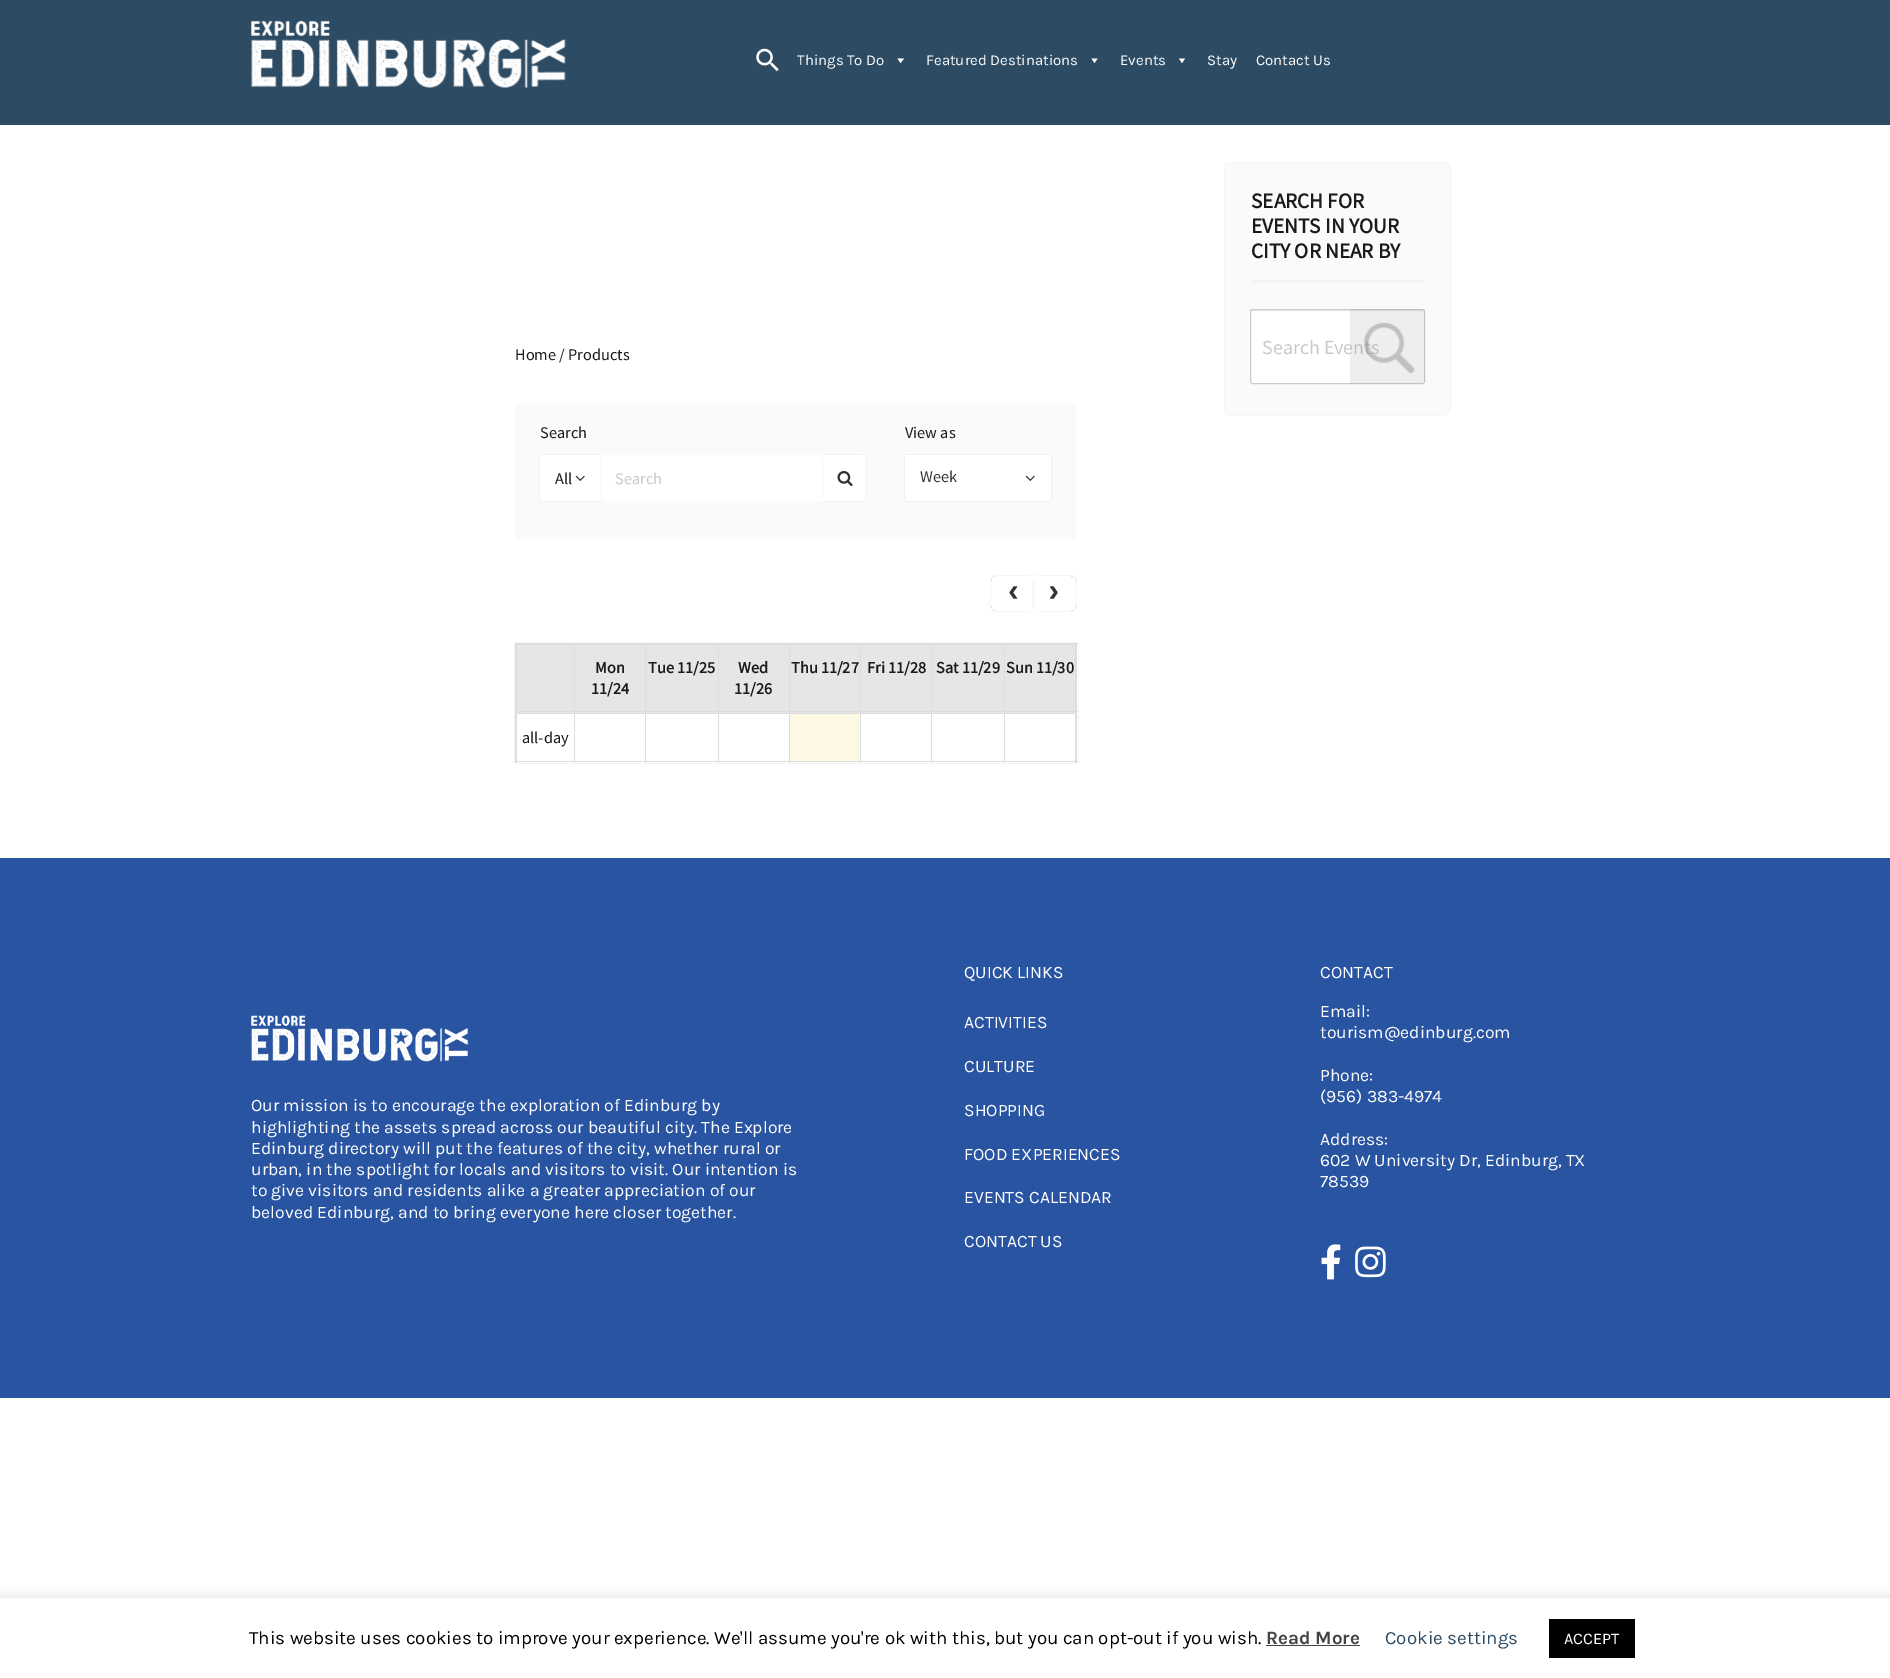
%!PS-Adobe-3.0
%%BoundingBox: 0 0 1890 1678
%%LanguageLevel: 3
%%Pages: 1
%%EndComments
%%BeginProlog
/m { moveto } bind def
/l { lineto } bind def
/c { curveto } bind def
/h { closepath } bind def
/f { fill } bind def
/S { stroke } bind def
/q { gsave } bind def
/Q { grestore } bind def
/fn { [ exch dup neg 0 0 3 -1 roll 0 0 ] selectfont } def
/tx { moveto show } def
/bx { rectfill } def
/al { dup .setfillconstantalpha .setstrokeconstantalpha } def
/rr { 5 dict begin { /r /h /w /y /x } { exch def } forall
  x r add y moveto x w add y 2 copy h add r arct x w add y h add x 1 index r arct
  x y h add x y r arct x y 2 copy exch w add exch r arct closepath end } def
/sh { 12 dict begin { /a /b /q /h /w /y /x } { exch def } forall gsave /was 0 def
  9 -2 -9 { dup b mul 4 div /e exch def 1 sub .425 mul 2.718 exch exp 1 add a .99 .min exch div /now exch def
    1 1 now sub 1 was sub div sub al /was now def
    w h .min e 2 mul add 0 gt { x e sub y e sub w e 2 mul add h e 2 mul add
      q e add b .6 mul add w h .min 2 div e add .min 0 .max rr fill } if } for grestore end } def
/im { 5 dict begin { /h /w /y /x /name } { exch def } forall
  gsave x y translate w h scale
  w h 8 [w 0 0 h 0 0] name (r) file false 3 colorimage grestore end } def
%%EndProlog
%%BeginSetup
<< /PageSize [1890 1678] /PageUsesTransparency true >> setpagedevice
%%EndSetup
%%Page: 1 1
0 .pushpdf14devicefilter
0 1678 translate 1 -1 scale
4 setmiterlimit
1 setgray
0 0 1890 1678 bx
0.176 0.294 0.388 setrgbcolor
0 0 1890 125 bx
(image0.raw) 251 20 315 68 im
(image1.raw) 756 48 23 24 im
/Karla-Regular 15 fn
1 setgray
(Things To Do) 797 65 tx
904 58.5 m 900.5 63 l 897.5 58.5 l h f
(Featured Destinations) 926 65 tx
1097.5 58.5 m 1094.5 63 l 1091.5 58.5 l h f
(Events) 1120 65 tx
1185 58.5 m 1182 63 l 1179 58.5 l h f
(Stay) 1207 65 tx
(Contact Us) 1256 65 tx
0 setgray
1225 163 225 252 5 0.5 0.15 sh
0.98 setgray
1225 163 225 252 5 rr f
0.957 setgray
1250 280 175 3 bx
/SourceSansPro-Bold 21.25 fn
0.102 setgray
(SEARCH FOR) 1251 208 tx
(EVENTS IN YOUR) 1251 233 tx
(CITY OR NEAR BY) 1251 258 tx
1 setgray
1250 309 175 75 2.5 rr f
0.925 setgray
1252 311 m 1422 311 l 1423 311 1424 312 1424 312 c 1424 310 l 1252 310 l 1251 310 1251 311 1251 312 c h f
0.8 setgray
1250.5 309.5 174 74 2 rr S
/SourceSansPro-Regular 20 fn
0.788 setgray
(Search Events) 1262 354 tx
0.12 al
0.459 setgray
1350 309 m 1421 309 l 1423 309 1425 311 1425 313 c 1425 380 l 1425 382 1423 384 1421 384 c 1350 384 l h f
1 al
(image2.raw) 1364 322 51 52 im
/SourceSansPro-Regular 16.25 fn
0.102 setgray
(Home / Products) 515 360 tx
0.98 setgray
515 403 561 136 bx
0.102 setgray
(Search) 540 438 tx
1 setgray
601 455 222 46 bx
0 setgray
540 455 61 46 2.5 0.5 0.15 sh
1 setgray
542.5 455 m 601 455 l 601 501 l 542.5 501 l 541 501 540 500 540 498.5 c 540 457.5 l 540 456 541 455 542.5 455 c h f
0.102 setgray
(All) 555 484 tx
(image3.raw) 575 475 10 6 im
0.788 setgray
(Search) 615 484 tx
0 setgray
823 455 43 46 5 0.5 0.15 sh
1 setgray
823 455 m 861 455 l 864 455 866 457 866 460 c 866 496 l 866 499 864 501 861 501 c 823 501 l h f
(image4.raw) 837 471 16 16 im
0.102 setgray
(View as) 905 438 tx
0 setgray
905 455 146 46 2.5 0.5 0.15 sh
1 setgray
905 455 146 46 2.5 rr f
0.2 setgray
(Week) 920 482 tx
(image3.raw) 1025 475 10 6 im
q
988 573 m 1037 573 l 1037 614 l 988 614 l h 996 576 m 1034 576 l 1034 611 l 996 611 l 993 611 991 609 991 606 c 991 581 l 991 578 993 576 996 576 c h eoclip newpath
0 setgray
991 576 43 35 5 0.5 0.15 sh
Q
/LiberationMono-Bold 32 fn
(‹) 1004 601 tx
q
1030 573 m 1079 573 l 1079 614 l 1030 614 l h 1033 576 m 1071 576 l 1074 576 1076 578 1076 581 c 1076 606 l 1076 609 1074 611 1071 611 c 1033 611 l h eoclip newpath
0 setgray
1033 576 43 35 5 0.5 0.15 sh
Q
(›) 1044 601 tx
q
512 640 m 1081 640 l 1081 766 l 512 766 l h 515 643 m 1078 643 l 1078 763 l 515 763 l h eoclip newpath
0 setgray
515 643 563 120 0 0.5 0.15 sh
Q
0.902 setgray
517 645 558 68 bx
0.867 setgray
515 643 563 1 bx
515 711 563 1 bx
1076 711 1 52 bx
1076 643 1 70 bx
515 761 563 1 bx
515 711 1 52 bx
515 643 1 70 bx
1004 644 72 1 bx
1004 644 1 69 bx
931 644 74 1 bx
931 644 1 69 bx
860 644 73 1 bx
860 644 1 69 bx
789 644 72 1 bx
789 644 1 69 bx
718 644 72 1 bx
718 644 1 69 bx
645 644 74 1 bx
645 644 1 69 bx
574 644 72 1 bx
574 644 1 69 bx
516 644 59 1 bx
516 644 1 69 bx
/SourceSansPro-Bold 16.25 fn
0.102 setgray
(Mon) 595 673 tx
(11/24) 591 694 tx
(Tue 11/25) 648 673 tx
(Wed) 738 673 tx
(11/26) 734 694 tx
(Thu 11/27) 791 673 tx
(Fri 11/28) 867 673 tx
(Sat 11/29) 936 673 tx
0.867 setgray
1075 644 1 69 bx
0.102 setgray
(Sun 11/30) 1006 673 tx
0.867 setgray
1004 713 72 1 bx
1004 713 1 50 bx
931 713 74 1 bx
931 713 1 50 bx
860 713 73 1 bx
860 713 1 50 bx
789 713 72 1 bx
789 713 1 50 bx
718 713 72 1 bx
718 713 1 50 bx
645 713 74 1 bx
645 713 1 50 bx
574 713 72 1 bx
574 713 1 50 bx
516 713 59 1 bx
516 713 1 50 bx
/SourceSansPro-Regular 16.25 fn
0.102 setgray
(all-day) 522 743 tx
0.988 0.973 0.89 setrgbcolor
790 714 70 47 bx
0.867 setgray
1075 713 1 50 bx
0.157 0.329 0.631 setrgbcolor
0 858 1890 540 bx
(image5.raw) 251 1015 217 47 im
/Karla-Regular 17.5 fn
1 setgray
(Our mission is to encourage the exploration of Edinburg by) 251 1111 tx
(highlighting the assets spread across our beautiful city. The Explore) 251 1133 tx
(Edinburg directory will put the features of the city, whether rural or) 251 1154 tx
(urban, in the spotlight for locals and visitors to visit. Our intention is) 251 1175 tx
(to give visitors and residents alike a greater appreciation of our) 251 1196 tx
(beloved Edinburg, and to bring everyone here closer together.) 251 1218 tx
(QUICK LINKS) 964 978 tx
(ACTIVITIES) 964 1028 tx
(CULTURE) 964 1072 tx
(SHOPPING) 964 1116 tx
(FOOD EXPERIENCES) 964 1160 tx
(EVENTS CALENDAR) 964 1203 tx
(CONTACT US) 964 1247 tx
(CONTACT) 1320 978 tx
(Email:) 1320 1017 tx
(tourism@edinburg.com) 1320 1038 tx
(Phone:) 1320 1081 tx
(\(956\) 383-4974) 1320 1102 tx
(Address:) 1320 1145 tx
(602 W University Dr, Edinburg, TX) 1320 1166 tx
(78539) 1320 1187 tx
(image6.raw) 1321 1244 20 36 im
(image7.raw) 1355 1246 31 32 im
q
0 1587 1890 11 rectclip
0.675 0.671 0.671 setrgbcolor
0 1596 1890 82 0 6 0.3 sh
Q
/Karla-Regular 18.75 fn
0 setgray
(This website uses cookies to improve your experience. We'll assume you're ok with this, but you can opt-out if you wish.) 249 1644 tx
/Karla-Bold 18.75 fn
0.267 setgray
(Read More) 1266 1644 tx
1266 1645 94 1 bx
/Karla-Regular 18.75 fn
0.176 0.294 0.388 setrgbcolor
(Cookie settings) 1385 1644 tx
0 setgray
1549 1619 86 39 bx
/Karla-Regular 16.25 fn
1 setgray
(ACCEPT) 1564 1644 tx
.poppdf14devicefilter showpage
%%EOF
